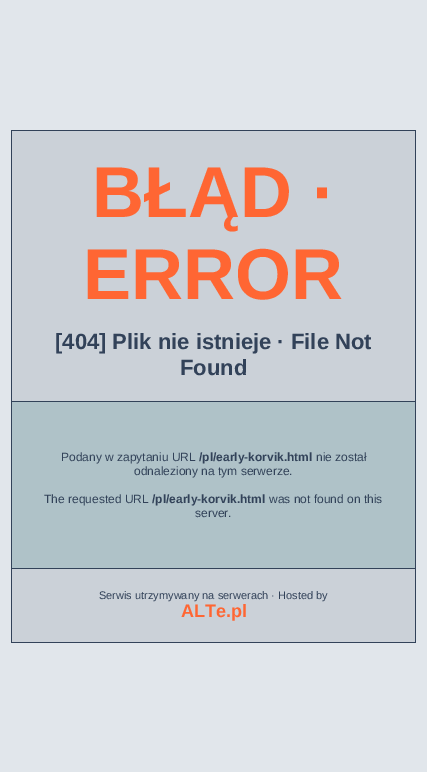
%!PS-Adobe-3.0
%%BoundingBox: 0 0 427 772
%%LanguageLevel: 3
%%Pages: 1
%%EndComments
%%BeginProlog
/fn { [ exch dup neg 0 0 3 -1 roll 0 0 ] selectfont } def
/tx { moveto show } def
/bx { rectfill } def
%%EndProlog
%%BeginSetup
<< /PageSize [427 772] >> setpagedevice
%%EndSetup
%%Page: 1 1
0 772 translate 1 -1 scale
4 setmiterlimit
0.882 0.902 0.922 setrgbcolor
0 0 427 772 bx
0.196 0.259 0.349 setrgbcolor
11 130 405 513 bx
0.796 0.82 0.847 setrgbcolor
12 131 403 270 bx
/LiberationSans-Bold 72 fn
1 0.4 0.2 setrgbcolor
(BŁĄD ·) 92 217 tx
(ERROR) 83 299 tx
/LiberationSans-Bold 22 fn
0.196 0.259 0.349 setrgbcolor
([404] Plik nie istnieje · File Not) 55 349 tx
(Found) 180 375 tx
0.686 0.761 0.784 setrgbcolor
12 402 403 166 bx
/LiberationSans-Regular 12 fn
0.196 0.259 0.349 setrgbcolor
(Podany w zapytaniu URL) 61 461 tx
/LiberationSans-Bold 12 fn
(/pl/early-korvik.html) 199 461 tx
/LiberationSans-Regular 12 fn
(nie został) 316 461 tx
(odnaleziony na tym serwerze.) 134 475 tx
(The requested URL) 44 503 tx
/LiberationSans-Bold 12 fn
(/pl/early-korvik.html) 152 503 tx
/LiberationSans-Regular 12 fn
(was not found on this) 269 503 tx
(server.) 195 517 tx
0.796 0.82 0.847 setrgbcolor
12 569 403 73 bx
/LiberationSans-Regular 11 fn
0.196 0.259 0.349 setrgbcolor
(Serwis utrzymywany na serwerach · Hosted by) 99 599 tx
/LiberationSans-Bold 18 fn
1 0.4 0.2 setrgbcolor
(ALTe.pl) 181 617 tx
showpage
%%EOF
